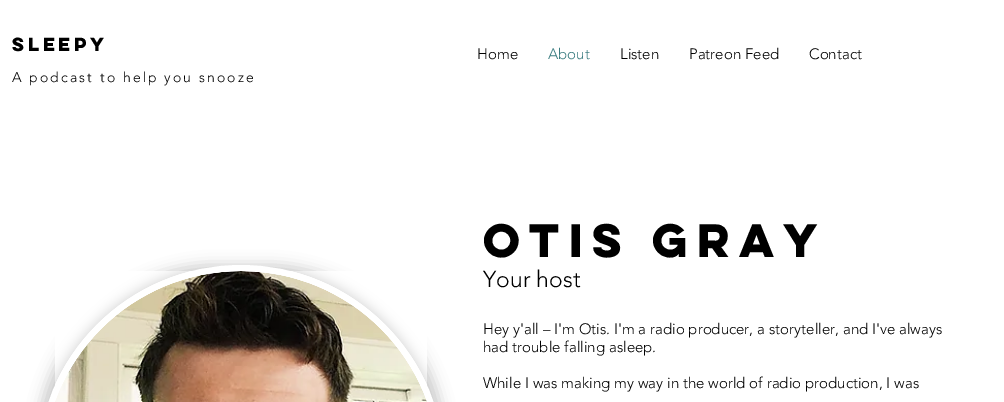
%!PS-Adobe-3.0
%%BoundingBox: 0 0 1004 402
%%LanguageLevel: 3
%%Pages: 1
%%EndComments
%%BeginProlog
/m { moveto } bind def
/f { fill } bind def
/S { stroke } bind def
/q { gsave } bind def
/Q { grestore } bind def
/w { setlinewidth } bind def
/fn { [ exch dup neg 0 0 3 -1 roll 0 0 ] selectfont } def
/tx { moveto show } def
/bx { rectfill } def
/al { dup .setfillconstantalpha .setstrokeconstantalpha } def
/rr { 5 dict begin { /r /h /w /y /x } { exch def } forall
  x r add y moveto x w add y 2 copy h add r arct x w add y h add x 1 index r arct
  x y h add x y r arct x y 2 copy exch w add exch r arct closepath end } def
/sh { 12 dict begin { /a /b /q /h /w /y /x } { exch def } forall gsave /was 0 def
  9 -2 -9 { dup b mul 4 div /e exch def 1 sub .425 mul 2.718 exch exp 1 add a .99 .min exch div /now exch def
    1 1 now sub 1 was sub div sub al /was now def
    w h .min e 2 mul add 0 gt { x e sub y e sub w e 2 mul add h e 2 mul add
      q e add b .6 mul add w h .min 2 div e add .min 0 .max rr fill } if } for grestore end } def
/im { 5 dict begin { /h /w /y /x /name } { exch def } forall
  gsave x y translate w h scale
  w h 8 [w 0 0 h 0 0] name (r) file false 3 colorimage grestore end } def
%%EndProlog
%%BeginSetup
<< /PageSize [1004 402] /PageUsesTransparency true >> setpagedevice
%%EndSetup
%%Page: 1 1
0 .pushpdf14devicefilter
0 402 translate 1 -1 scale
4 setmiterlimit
1 setgray
0 0 1004 402 bx
/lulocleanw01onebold-Bold 17 fn
0 setgray
(Sleepy) 12 51 tx
/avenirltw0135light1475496-Light 15 fn
(Home) 477 59 tx
0.227 0.486 0.502 setrgbcolor
(About) 548 59 tx
0 setgray
(Listen) 620 59 tx
(Patreon Feed) 689 59 tx
(Contact) 809 59 tx
/avenirltw0135light1475496-Light 14 fn
12 82 m 2.1 0 (A podcast to help you snooze) ashow
37 265 408 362 204 7 0.2 sh
1 setgray
40 268 402 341 201 rr q f Q
6 w
S
(image0.raw) 55 271 372 131 im
/lulocleanw01onebold-Bold 42 fn
0 setgray
(Otis Gray) 483 257 tx
/avenirltw0135light1475496-Light 23 fn
(Your host) 483 287 tx
/avenirltw0135light1475496-Light 15 fn
(Hey y'all – I'm Otis. I'm a radio producer, a storyteller, and I've always) 483 334 tx
(had trouble falling asleep.) 483 352 tx
(While I was making my way in the world of radio production, I was) 483 388 tx
.poppdf14devicefilter showpage
%%EOF
